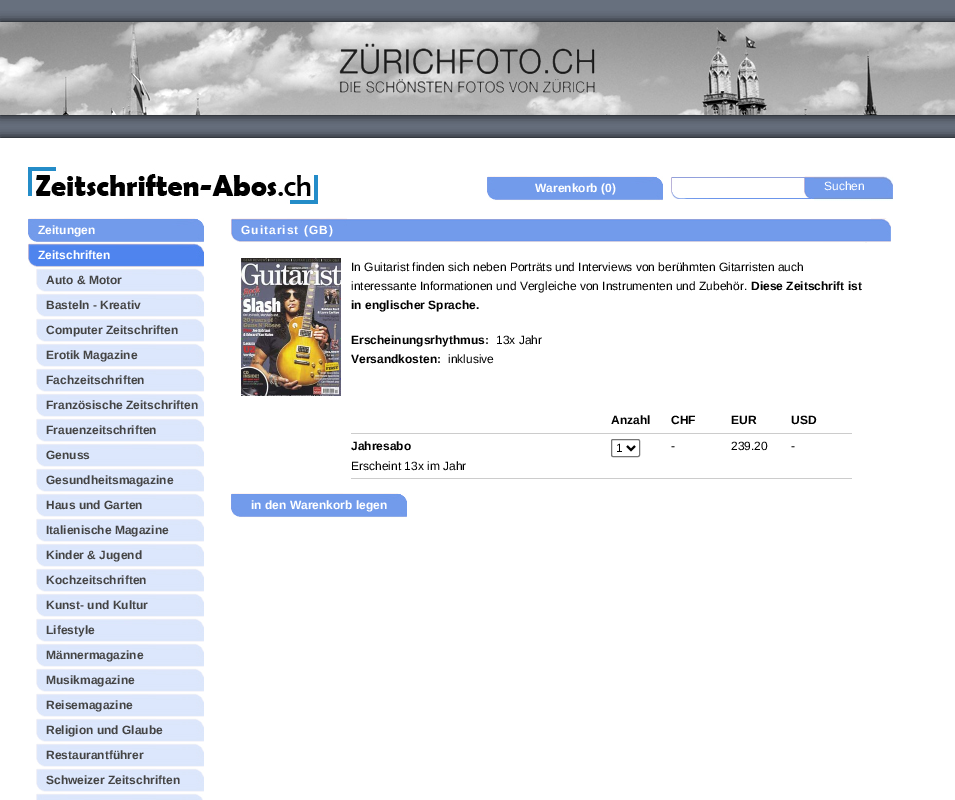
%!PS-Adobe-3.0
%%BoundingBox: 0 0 955 800
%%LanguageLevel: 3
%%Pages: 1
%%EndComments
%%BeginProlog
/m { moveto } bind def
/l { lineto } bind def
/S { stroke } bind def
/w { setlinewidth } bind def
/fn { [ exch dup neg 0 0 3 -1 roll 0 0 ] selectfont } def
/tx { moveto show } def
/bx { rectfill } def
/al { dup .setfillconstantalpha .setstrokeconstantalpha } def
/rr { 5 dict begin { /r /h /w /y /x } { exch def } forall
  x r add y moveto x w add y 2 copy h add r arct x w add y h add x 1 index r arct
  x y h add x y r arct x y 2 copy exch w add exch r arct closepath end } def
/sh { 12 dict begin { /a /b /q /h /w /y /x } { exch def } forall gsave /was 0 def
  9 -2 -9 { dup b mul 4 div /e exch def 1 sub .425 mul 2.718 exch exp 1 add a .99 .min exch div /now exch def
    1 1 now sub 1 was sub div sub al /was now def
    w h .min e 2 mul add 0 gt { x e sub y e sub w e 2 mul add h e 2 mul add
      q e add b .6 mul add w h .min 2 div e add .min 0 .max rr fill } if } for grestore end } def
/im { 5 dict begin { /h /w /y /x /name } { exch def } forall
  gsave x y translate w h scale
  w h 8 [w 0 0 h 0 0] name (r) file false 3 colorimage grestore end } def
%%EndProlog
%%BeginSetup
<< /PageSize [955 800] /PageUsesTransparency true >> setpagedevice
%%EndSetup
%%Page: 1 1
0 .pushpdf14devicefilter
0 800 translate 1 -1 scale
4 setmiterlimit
0.404 0.439 0.494 setrgbcolor
0 0 955 800 bx
0 setgray
0 22 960 93 0 5 1 sh
(image0.raw) 0 22 955 93 im
0 138 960 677 0 5 1 sh
1 setgray
0 138 955 662 bx
(image1.raw) 28 167 290 37 im
(image2.raw) 487 176 176 25 im
/LiberationSans-Bold 12 fn
(Warenkorb \(0\)) 535 192 tx
(image3.raw) 671 176 143 23 im
677 181 125 13 bx
(image4.raw) 814 176 79 25 im
/LiberationSans-Regular 12 fn
(Suchen) 824 190 tx
(image2.raw) 28 218 176 25 im
/LiberationSans-Bold 12 fn
(Zeitungen) 38 234 tx
(image5.raw) 28 243 176 25 im
(Zeitschriften) 38 259 tx
(image6.raw) 36 268 168 24 im
0.267 setgray
(Auto & Motor) 46 284 tx
(image6.raw) 36 293 168 24 im
(Basteln - Kreativ) 46 309 tx
(image6.raw) 36 318 168 24 im
(Computer Zeitschriften) 46 334 tx
(image6.raw) 36 343 168 24 im
(Erotik Magazine) 46 359 tx
(image6.raw) 36 368 168 24 im
(Fachzeitschriften) 46 384 tx
(image6.raw) 36 393 168 24 im
(Französische Zeitschriften) 46 409 tx
(image6.raw) 36 418 168 24 im
(Frauenzeitschriften) 46 434 tx
(image6.raw) 36 443 168 24 im
(Genuss) 46 459 tx
(image6.raw) 36 468 168 24 im
(Gesundheitsmagazine) 46 484 tx
(image6.raw) 36 493 168 24 im
(Haus und Garten) 46 509 tx
(image6.raw) 36 518 168 24 im
(Italienische Magazine) 46 534 tx
(image6.raw) 36 543 168 24 im
(Kinder & Jugend) 46 559 tx
(image6.raw) 36 568 168 24 im
(Kochzeitschriften) 46 584 tx
(image6.raw) 36 593 168 24 im
(Kunst- und Kultur) 46 609 tx
(image6.raw) 36 618 168 24 im
(Lifestyle) 46 634 tx
(image6.raw) 36 643 168 24 im
(Männermagazine) 46 659 tx
(image6.raw) 36 668 168 24 im
(Musikmagazine) 46 684 tx
(image6.raw) 36 693 168 24 im
(Reisemagazine) 46 709 tx
(image6.raw) 36 718 168 24 im
(Religion und Glaube) 46 734 tx
(image6.raw) 36 743 168 24 im
(Restaurantführer) 46 759 tx
(image6.raw) 36 768 168 24 im
(Schweizer Zeitschriften) 46 784 tx
(image7.raw) 36 793 167 7 im
(image8.raw) 231 218 660 25 im
1 setgray
241 234 m 1 0 (Guitarist \(GB\)) ashow
(image9.raw) 241 258 100 138 im
/LiberationSans-Regular 12 fn
0 setgray
(In Guitarist finden sich neben Porträts und Interviews von berühmten Gitarristen auch) 351 271 tx
(interessante Informationen und Vergleiche von Instrumenten und Zubehör.) 351 290 tx
/LiberationSans-Bold 12 fn
(Diese Zeitschrift ist) 751 290 tx
(in englischer Sprache.) 351 309 tx
(Erscheinungsrhythmus:) 351 344 tx
/LiberationSans-Regular 12 fn
(13x Jahr) 496 344 tx
/LiberationSans-Bold 12 fn
(Versandkosten:) 351 363 tx
/LiberationSans-Regular 12 fn
(inklusive) 448 363 tx
/LiberationSans-Bold 12 fn
(Anzahl) 611 424 tx
(CHF) 671 424 tx
(EUR) 731 424 tx
0.8 setgray
351 433 501 1 bx
0 setgray
(USD) 791 424 tx
(Jahresabo) 351 450 tx
/LiberationSans-Regular 12 fn
(Erscheint 13x im Jahr) 351 470 tx
0.463 setgray
611.5 439.5 28 17 1.5 rr S
0 setgray
2 w
627 446 m 631 450 l 635 446 l S
(1) 616 452 tx
(-) 671 450 tx
(239.20) 731 450 tx
0.8 setgray
351 478 501 1 bx
0 setgray
(-) 791 450 tx
(image2.raw) 231 493 176 25 im
/LiberationSans-Bold 12 fn
1 setgray
(in den Warenkorb legen) 251 509 tx
.poppdf14devicefilter showpage
%%EOF
